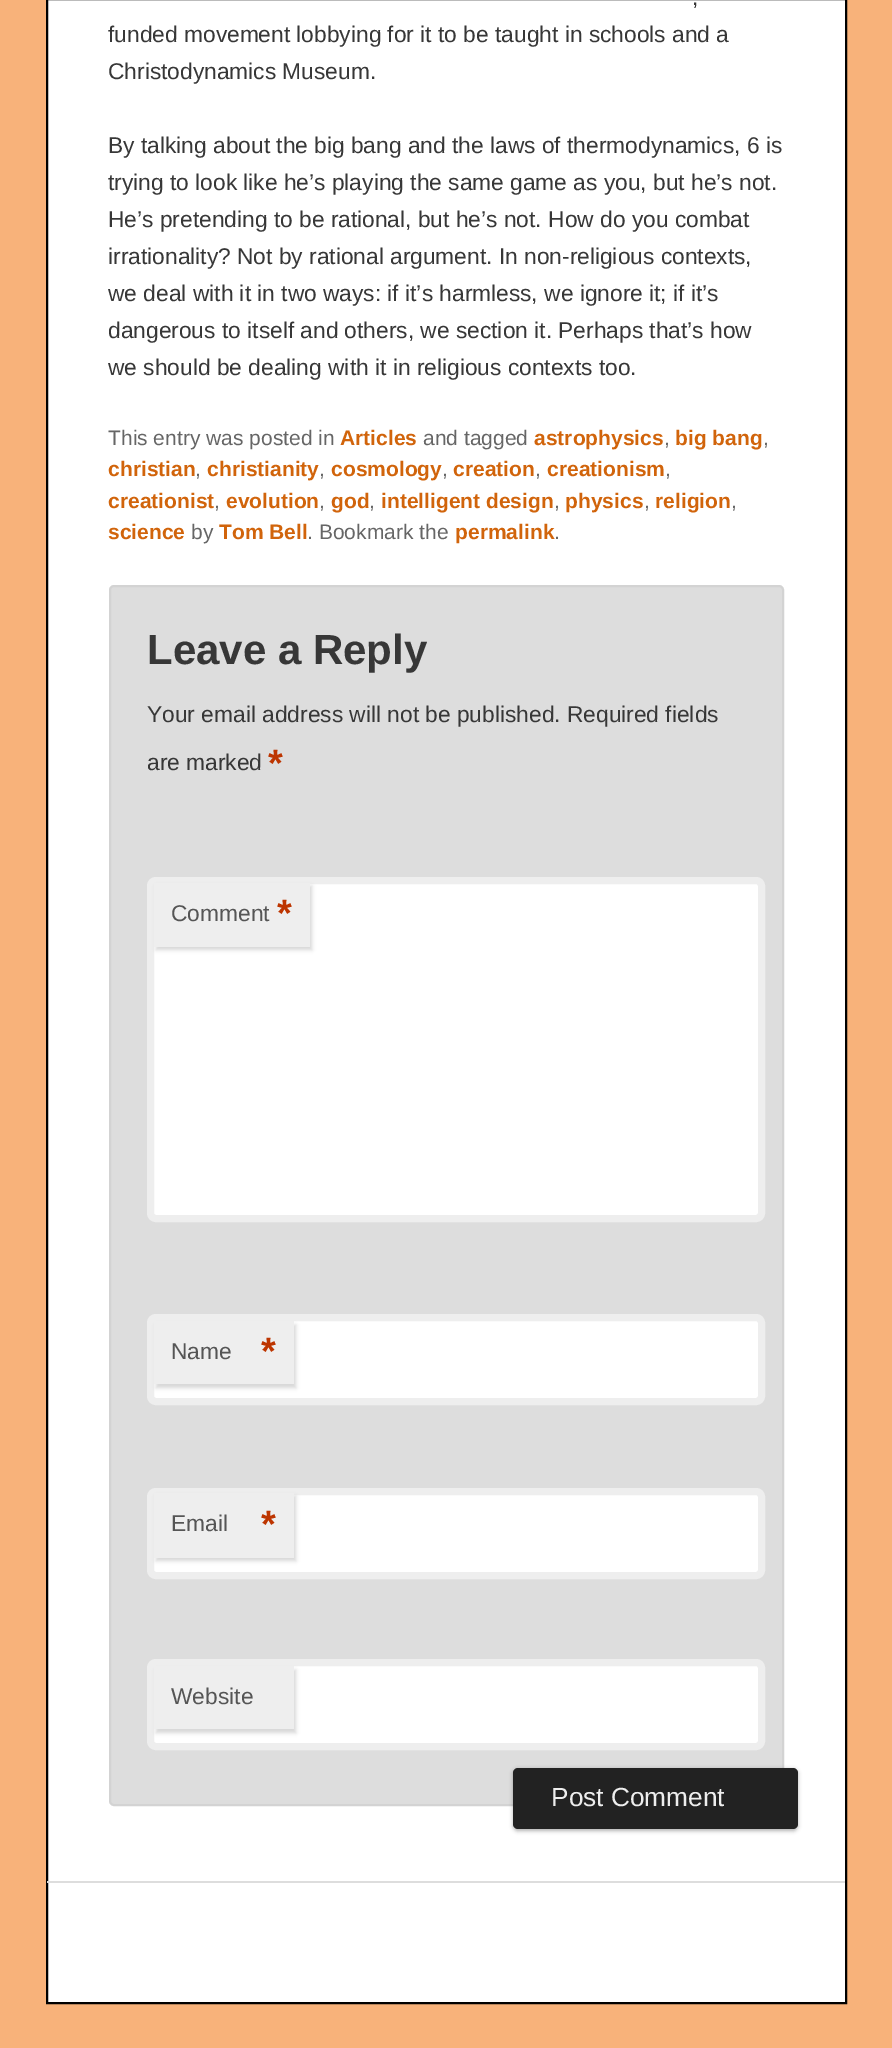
%!PS-Adobe-3.0
%%BoundingBox: 0 0 892 2048
%%LanguageLevel: 3
%%Pages: 1
%%EndComments
%%BeginProlog
/m { moveto } bind def
/l { lineto } bind def
/h { closepath } bind def
/f { fill } bind def
/S { stroke } bind def
/q { gsave } bind def
/Q { grestore } bind def
/w { setlinewidth } bind def
/fn { [ exch dup neg 0 0 3 -1 roll 0 0 ] selectfont } def
/tx { moveto show } def
/bx { rectfill } def
/al { dup .setfillconstantalpha .setstrokeconstantalpha } def
/rr { 5 dict begin { /r /h /w /y /x } { exch def } forall
  x r add y moveto x w add y 2 copy h add r arct x w add y h add x 1 index r arct
  x y h add x y r arct x y 2 copy exch w add exch r arct closepath end } def
/sh { 12 dict begin { /a /b /q /h /w /y /x } { exch def } forall gsave /was 0 def
  9 -2 -9 { dup b mul 4 div /e exch def 1 sub .425 mul 2.718 exch exp 1 add a .99 .min exch div /now exch def
    1 1 now sub 1 was sub div sub al /was now def
    w h .min e 2 mul add 0 gt { x e sub y e sub w e 2 mul add h e 2 mul add
      q e add b .6 mul add w h .min 2 div e add .min 0 .max rr fill } if } for grestore end } def
%%EndProlog
%%BeginSetup
<< /PageSize [892 2048] /PageUsesTransparency true >> setpagedevice
%%EndSetup
%%Page: 1 1
0 .pushpdf14devicefilter
0 2048 translate 1 -1 scale
4 setmiterlimit
0.973 0.698 0.478 setrgbcolor
0 0 892 2048 bx
1 setgray
47 -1 m 846 -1 l 846 2003 l 47 2003 l h q f Q
0 setgray
2 w
S
/LiberationSans-Regular 22.75 fn
0.216 setgray
(,) 692 5 tx
(funded movement lobbying for it to be taught in schools and a) 108 42 tx
(Christodynamics Museum.) 108 79 tx
(By talking about the big bang and the laws of thermodynamics, 6 is) 108 153 tx
(trying to look like he’s playing the same game as you, but he’s not.) 108 190 tx
(He’s pretending to be rational, but he’s not. How do you combat) 108 227 tx
(irrationality? Not by rational argument. In non-religious contexts,) 108 264 tx
(we deal with it in two ways: if it’s harmless, we ignore it; if it’s) 108 301 tx
(dangerous to itself and others, we section it. Perhaps that’s how) 108 338 tx
(we should be dealing with it in religious contexts too.) 108 375 tx
/LiberationSans-Regular 21 fn
0.4 setgray
(This entry was posted in) 108 445 tx
/LiberationSans-Bold 21 fn
0.82 0.392 0.043 setrgbcolor
(Articles) 340 445 tx
/LiberationSans-Regular 21 fn
0.4 setgray
(and tagged) 423 445 tx
/LiberationSans-Bold 21 fn
0.82 0.392 0.043 setrgbcolor
(astrophysics) 534 445 tx
/LiberationSans-Regular 21 fn
0.4 setgray
(,) 664 445 tx
/LiberationSans-Bold 21 fn
0.82 0.392 0.043 setrgbcolor
(big bang) 675 445 tx
/LiberationSans-Regular 21 fn
0.4 setgray
(,) 763 445 tx
/LiberationSans-Bold 21 fn
0.82 0.392 0.043 setrgbcolor
(christian) 108 476 tx
/LiberationSans-Regular 21 fn
0.4 setgray
(,) 195 476 tx
/LiberationSans-Bold 21 fn
0.82 0.392 0.043 setrgbcolor
(christianity) 207 476 tx
/LiberationSans-Regular 21 fn
0.4 setgray
(,) 319 476 tx
/LiberationSans-Bold 21 fn
0.82 0.392 0.043 setrgbcolor
(cosmology) 331 476 tx
/LiberationSans-Regular 21 fn
0.4 setgray
(,) 442 476 tx
/LiberationSans-Bold 21 fn
0.82 0.392 0.043 setrgbcolor
(creation) 453 476 tx
/LiberationSans-Regular 21 fn
0.4 setgray
(,) 535 476 tx
/LiberationSans-Bold 21 fn
0.82 0.392 0.043 setrgbcolor
(creationism) 547 476 tx
/LiberationSans-Regular 21 fn
0.4 setgray
(,) 665 476 tx
/LiberationSans-Bold 21 fn
0.82 0.392 0.043 setrgbcolor
(creationist) 108 508 tx
/LiberationSans-Regular 21 fn
0.4 setgray
(,) 214 508 tx
/LiberationSans-Bold 21 fn
0.82 0.392 0.043 setrgbcolor
(evolution) 226 508 tx
/LiberationSans-Regular 21 fn
0.4 setgray
(,) 319 508 tx
/LiberationSans-Bold 21 fn
0.82 0.392 0.043 setrgbcolor
(god) 331 508 tx
/LiberationSans-Regular 21 fn
0.4 setgray
(,) 369 508 tx
/LiberationSans-Bold 21 fn
0.82 0.392 0.043 setrgbcolor
(intelligent design) 381 508 tx
/LiberationSans-Regular 21 fn
0.4 setgray
(,) 554 508 tx
/LiberationSans-Bold 21 fn
0.82 0.392 0.043 setrgbcolor
(physics) 565 508 tx
/LiberationSans-Regular 21 fn
0.4 setgray
(,) 644 508 tx
/LiberationSans-Bold 21 fn
0.82 0.392 0.043 setrgbcolor
(religion) 655 508 tx
/LiberationSans-Regular 21 fn
0.4 setgray
(,) 731 508 tx
/LiberationSans-Bold 21 fn
0.82 0.392 0.043 setrgbcolor
(science) 108 539 tx
/LiberationSans-Regular 21 fn
0.4 setgray
(by) 191 539 tx
/LiberationSans-Bold 21 fn
0.82 0.392 0.043 setrgbcolor
(Tom Bell) 219 539 tx
/LiberationSans-Regular 21 fn
0.4 setgray
(. Bookmark the) 307 539 tx
/LiberationSans-Bold 21 fn
0.82 0.392 0.043 setrgbcolor
(permalink) 455 539 tx
/LiberationSans-Regular 21 fn
0.4 setgray
(.) 554 539 tx
0.867 setgray
110 586 673 1219 4 rr q f Q
0.827 setgray
S
/LiberationSans-Bold 42 fn
0.216 setgray
(Leave a Reply) 147 664 tx
/LiberationSans-Regular 22.75 fn
(Your email address will not be published. Required fields) 147 722 tx
(are marked) 147 770 tx
/LiberationSans-Bold 38 fn
0.741 0.208 0 setrgbcolor
(*) 268 776 tx
1 setgray
150.5 880.5 611 338 5.5 rr q f Q
0.933 setgray
7 w
S
0.8 setgray
156 886 156 64 0 2 0.8 sh
0.933 setgray
154 883 156 64 bx
/LiberationSans-Regular 22.75 fn
0.333 setgray
(Comment) 171 921 tx
/LiberationSans-Bold 38 fn
0.741 0.208 0 setrgbcolor
(*) 277 926 tx
1 setgray
150.5 1317.5 611 84 5.5 rr q f Q
0.933 setgray
S
0.8 setgray
156 1325 140 63 0 2 0.8 sh
0.933 setgray
154 1321 140 63 bx
/LiberationSans-Regular 22.75 fn
0.333 setgray
(Name) 171 1359 tx
/LiberationSans-Bold 38 fn
0.741 0.208 0 setrgbcolor
(*) 261 1364 tx
1 setgray
150.5 1491.5 611 84 5.5 rr q f Q
0.933 setgray
S
0.8 setgray
156 1496 140 65 0 2 0.8 sh
0.933 setgray
154 1493 140 65 bx
/LiberationSans-Regular 22.75 fn
0.333 setgray
(Email) 171 1531 tx
/LiberationSans-Bold 38 fn
0.741 0.208 0 setrgbcolor
(*) 261 1537 tx
1 setgray
150.5 1662.5 611 84 5.5 rr q f Q
0.933 setgray
S
0.8 setgray
156 1670 140 63 0 2 0.8 sh
0.933 setgray
154 1666 140 63 bx
/LiberationSans-Regular 22.75 fn
0.333 setgray
(Website) 171 1704 tx
0 setgray
513 1769 285 62 5 2 0.3 sh
0.133 setgray
513 1768 285 61 5 rr f
/LiberationSans-Regular 26.25 fn
0.933 setgray
(Post Comment) 551 1806 tx
0.867 setgray
47 1881 798 2 bx
.poppdf14devicefilter showpage
%%EOF
